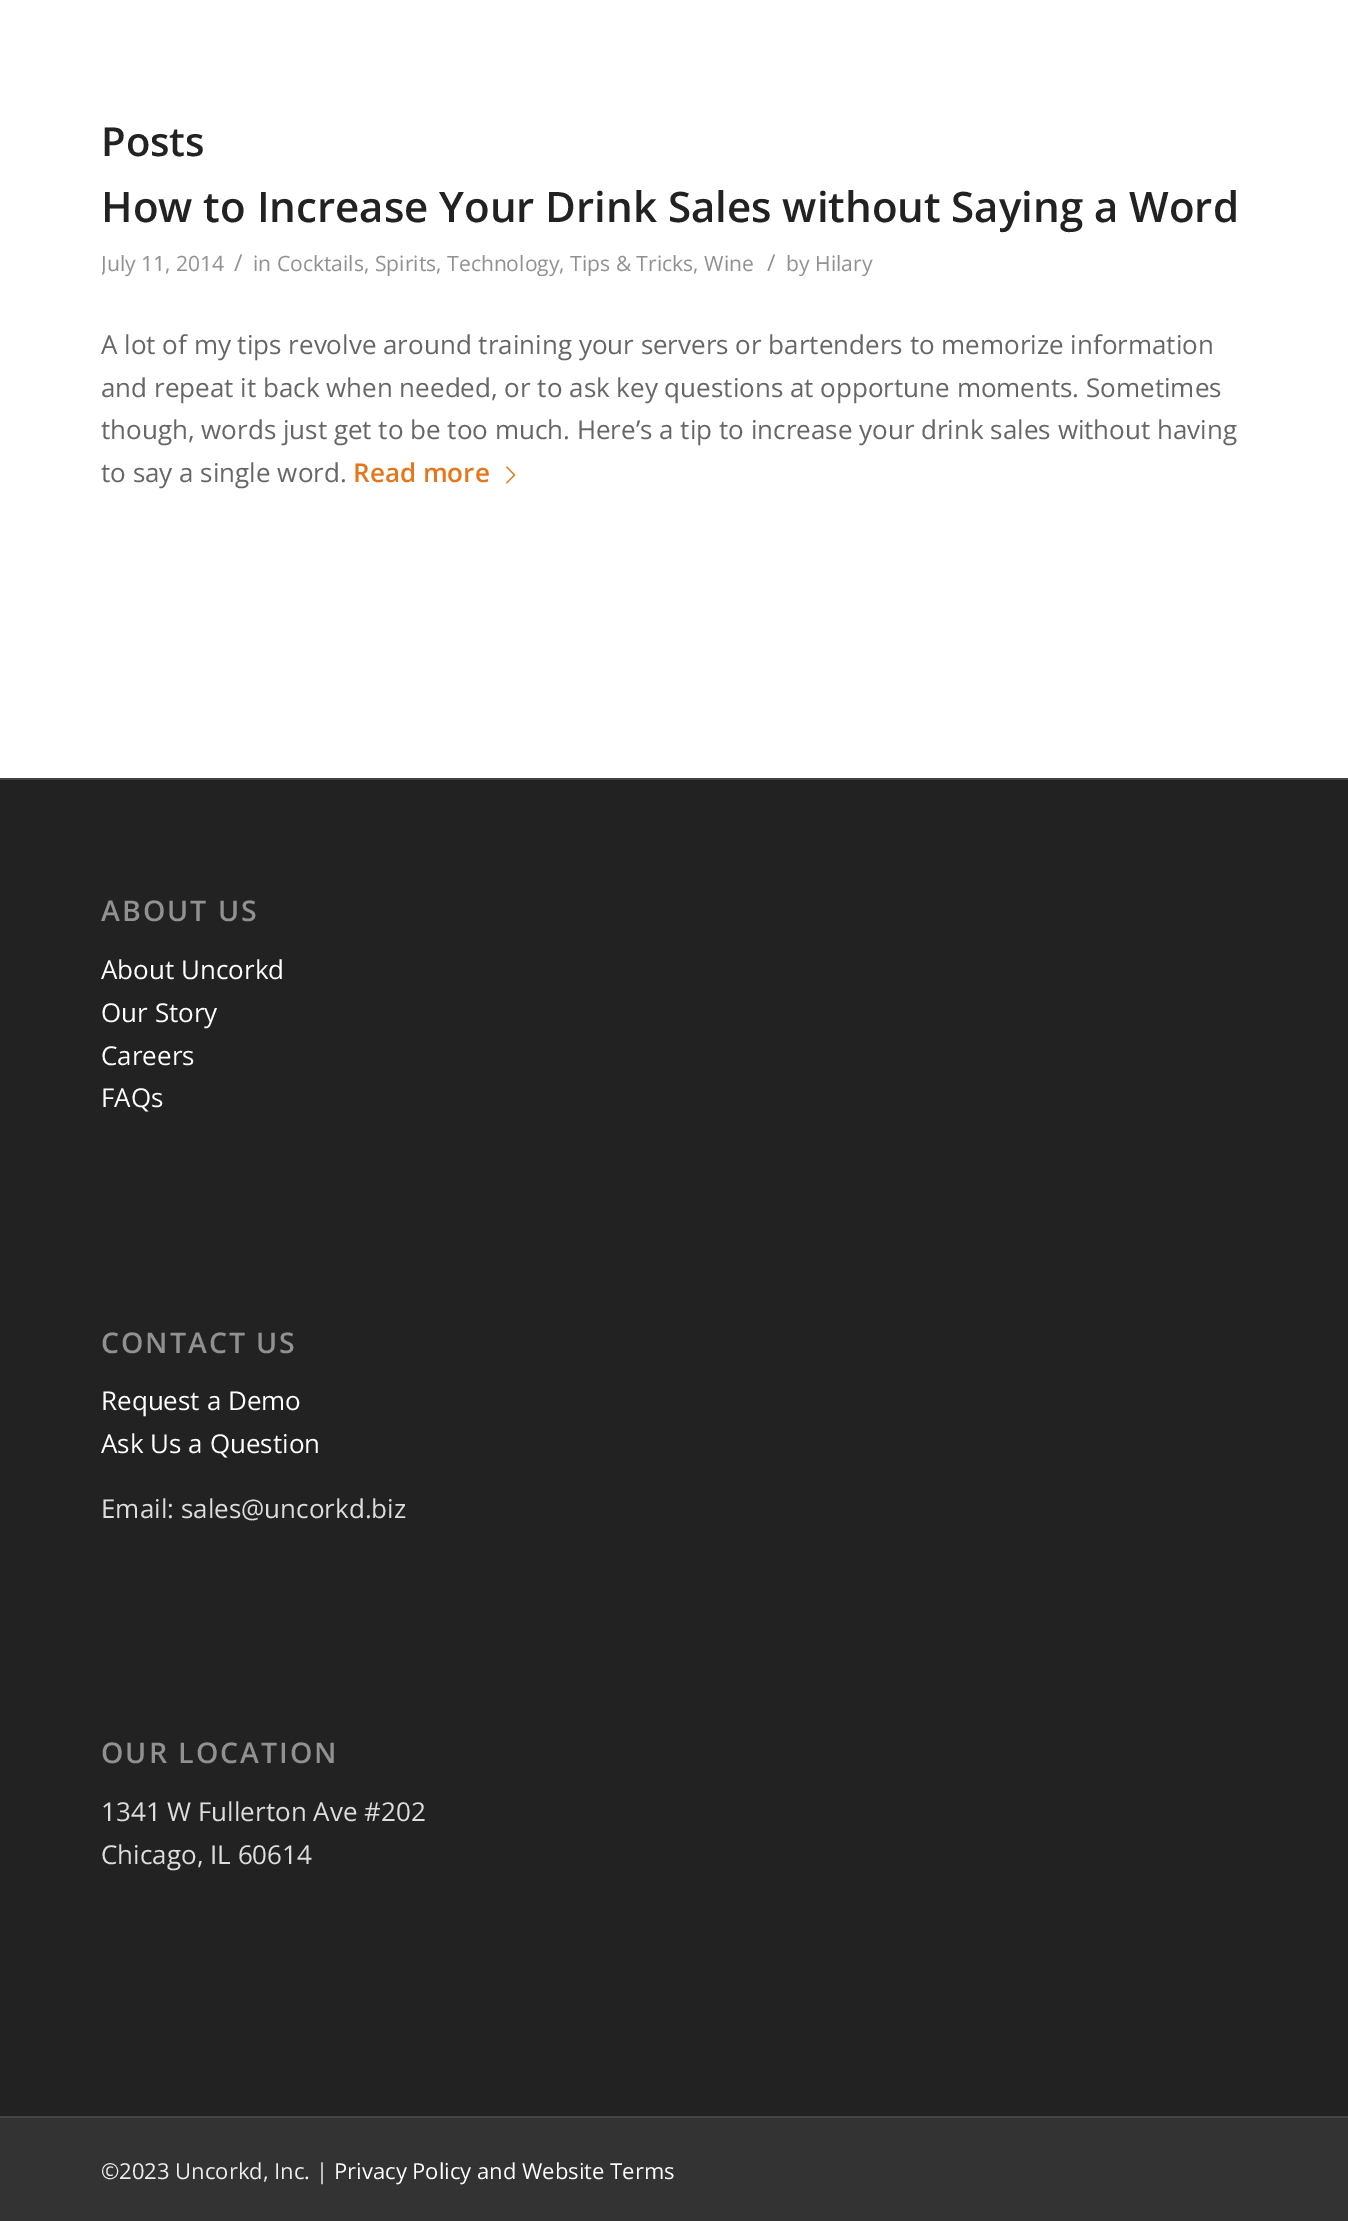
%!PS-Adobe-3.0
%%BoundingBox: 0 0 1348 2221
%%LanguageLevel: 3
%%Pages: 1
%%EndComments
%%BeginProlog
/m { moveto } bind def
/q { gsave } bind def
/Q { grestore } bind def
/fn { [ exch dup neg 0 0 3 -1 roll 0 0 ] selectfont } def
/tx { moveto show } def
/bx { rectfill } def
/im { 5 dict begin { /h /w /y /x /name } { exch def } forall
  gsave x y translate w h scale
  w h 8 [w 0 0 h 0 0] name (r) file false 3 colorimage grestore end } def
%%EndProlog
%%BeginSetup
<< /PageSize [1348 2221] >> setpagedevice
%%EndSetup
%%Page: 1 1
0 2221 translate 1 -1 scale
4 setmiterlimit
1 setgray
0 0 1348 2221 bx
/OpenSans-SemiBold 40 fn
0.133 setgray
(Posts) 101 156 tx
/OpenSans-SemiBold 42 fn
(How to Increase Your Drink Sales without Saying a Word) 101 222 tx
q
102 180 1144 458 rectclip
/OpenSans-Regular 21.1 fn
0.569 setgray
(July 11, 2014) 101 271 tx
Q
/OpenSans-Regular 23 fn
0.569 setgray
(/) 234 271 tx
/OpenSans-Regular 21.1 fn
(in Cocktails, Spirits, Technology, Tips & Tricks, Wine) 253 271 tx
/OpenSans-Regular 23 fn
(/) 767 271 tx
/OpenSans-Regular 21.1 fn
(by Hilary) 786 271 tx
/OpenSans-Regular 26 fn
0.4 setgray
(A lot of my tips revolve around training your servers or bartenders to memorize information) 101 354 tx
(and repeat it back when needed, or to ask key questions at opportune moments. Sometimes) 101 397 tx
(though, words just get to be too much. Here’s a tip to increase your drink sales without having) 101 439 tx
(to say a single word.) 101 482 tx
/OpenSans-SemiBold 26 fn
0.906 0.459 0.098 setrgbcolor
(Read more) 353 482 tx
(image0.raw) 506 466 10 18 im
0.133 setgray
0 780 1348 1336 bx
0.267 setgray
0 778 1348 2 bx
/OpenSans-SemiBold 28.5 fn
0.569 setgray
101 921 m 2 0 (ABOUT US) ashow
/OpenSans-Regular 26 fn
1 setgray
(About Uncorkd) 101 979 tx
(Our Story) 101 1022 tx
(Careers) 101 1065 tx
(FAQs) 101 1107 tx
/OpenSans-SemiBold 28.5 fn
0.569 setgray
101 1353 m 2 0 (CONTACT US) ashow
/OpenSans-Regular 26 fn
1 setgray
(Request a Demo) 101 1410 tx
(Ask Us a Question) 101 1453 tx
0.867 setgray
(Email: sales@uncorkd.biz) 101 1518 tx
/OpenSans-SemiBold 28.5 fn
0.569 setgray
101 1763 m 2 0 (OUR LOCATION) ashow
/OpenSans-Regular 26 fn
0.867 setgray
(1341 W Fullerton Ave #202) 101 1821 tx
(Chicago, IL 60614) 101 1864 tx
0.2 setgray
0 2118 1348 103 bx
0.267 setgray
0 2116 1348 2 bx
/OpenSans-Regular 22 fn
0.933 setgray
(©2023 Uncorkd, Inc. |) 101 2179 tx
1 setgray
(Privacy Policy and Website Terms) 334 2179 tx
showpage
%%EOF
